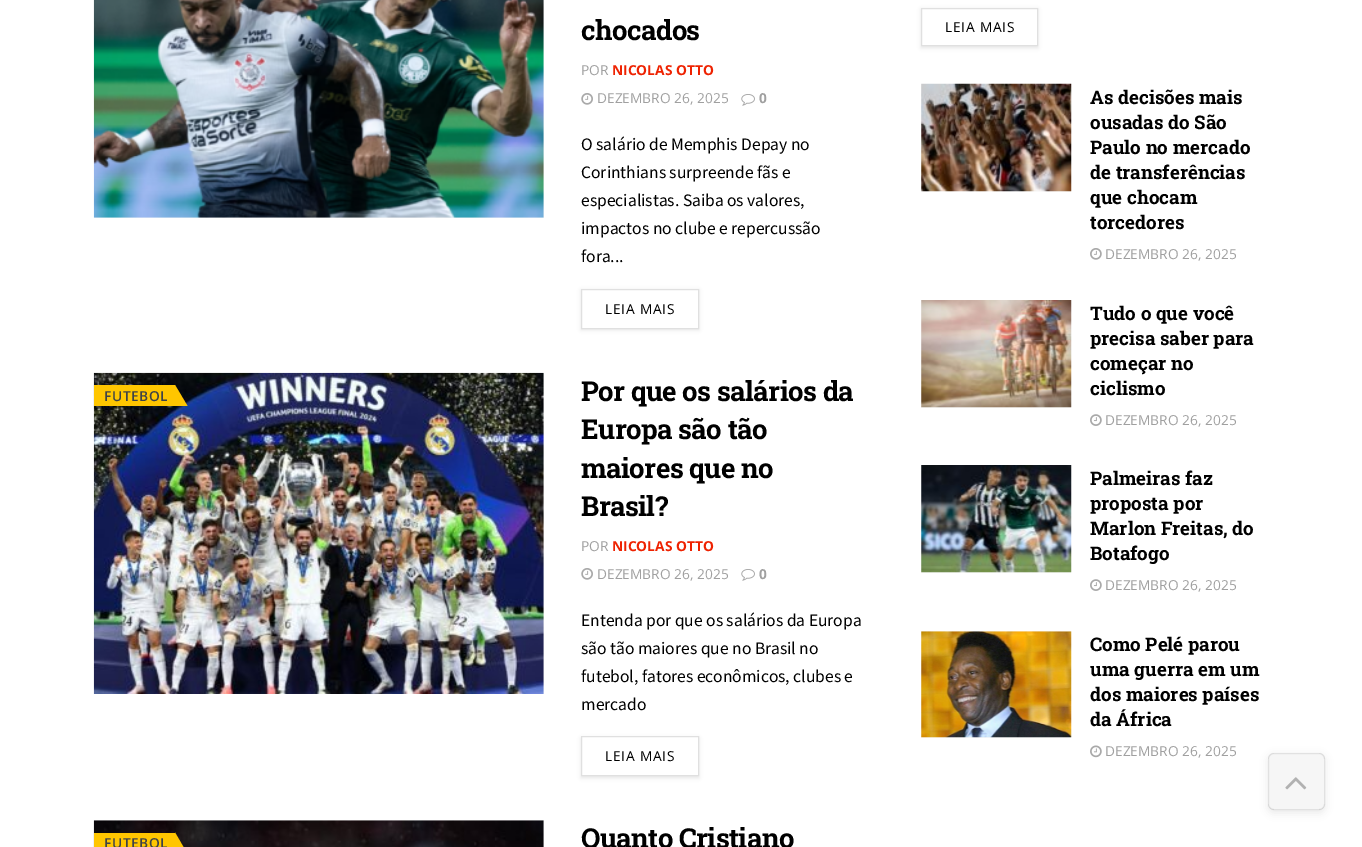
%!PS-Adobe-3.0
%%BoundingBox: 0 0 1362 847
%%LanguageLevel: 3
%%Pages: 1
%%EndComments
%%BeginProlog
/m { moveto } bind def
/l { lineto } bind def
/c { curveto } bind def
/h { closepath } bind def
/f { fill } bind def
/S { stroke } bind def
/q { gsave } bind def
/Q { grestore } bind def
/fn { [ exch dup neg 0 0 3 -1 roll 0 0 ] selectfont } def
/tx { moveto show } def
/bx { rectfill } def
/al { dup .setfillconstantalpha .setstrokeconstantalpha } def
/rr { 5 dict begin { /r /h /w /y /x } { exch def } forall
  x r add y moveto x w add y 2 copy h add r arct x w add y h add x 1 index r arct
  x y h add x y r arct x y 2 copy exch w add exch r arct closepath end } def
/sh { 12 dict begin { /a /b /q /h /w /y /x } { exch def } forall gsave /was 0 def
  9 -2 -9 { dup b mul 4 div /e exch def 1 sub .425 mul 2.718 exch exp 1 add a .99 .min exch div /now exch def
    1 1 now sub 1 was sub div sub al /was now def
    w h .min e 2 mul add 0 gt { x e sub y e sub w e 2 mul add h e 2 mul add
      q e add b .6 mul add w h .min 2 div e add .min 0 .max rr fill } if } for grestore end } def
/im { 5 dict begin { /h /w /y /x /name } { exch def } forall
  gsave x y translate w h scale
  w h 8 [w 0 0 h 0 0] name (r) file false 3 colorimage grestore end } def
%%EndProlog
%%BeginSetup
<< /PageSize [1362 847] /PageUsesTransparency true >> setpagedevice
%%EndSetup
%%Page: 1 1
0 .pushpdf14devicefilter
0 847 translate 1 -1 scale
4 setmiterlimit
1 setgray
0 0 1362 847 bx
0.969 setgray
94 0 450 218 bx
(image0.raw) 93 0 451 218 im
/RobotoSlab-Bold 27.5 fn
0 setgray
581 40 m -0.55 0 (chocados) ashow
/OpenSans-Regular 13.75 fn
0.627 setgray
(POR) 581 75 tx
/OpenSans-Bold 13.75 fn
0.933 0.133 0.004 setrgbcolor
(NICOLAS OTTO) 612 75 tx
(image1.raw) 581 93 12 12 im
/OpenSans-Regular 13.75 fn
0.627 setgray
(DEZEMBRO 26, 2025) 597 103 tx
(image2.raw) 741 94 14 12 im
/OpenSans-Bold 13.75 fn
(0) 759 103 tx
/SourceSansPro-Regular 17.5 fn
0 setgray
(O salário de Memphis Depay no) 581 150 tx
(Corinthians surpreende fãs e) 581 178 tx
(especialistas. Saiba os valores,) 581 206 tx
(impactos no clube e repercussão) 581 234 tx
(fora...) 581 262 tx
q
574 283 m 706 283 l 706 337 l 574 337 l h 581 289 m 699 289 l 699 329 l 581 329 l h eoclip newpath
581 290 118 40 0 2 0.1 sh
Q
0.878 setgray
581.5 289.5 117 39 rectstroke
/OpenSans-Regular 13.75 fn
0 setgray
605 314 m 0.75 0 (LEIA MAIS) ashow
0.969 setgray
543 373 1 321 bx
(image3.raw) 93 372 451 322 im
1 0.776 0 setrgbcolor
94 385 81 21 bx
/OpenSans-SemiBold 13.75 fn
0.239 0.259 0.282 setrgbcolor
104 401 m 0.5 0 (FUTEBOL) ashow
1 0.776 0 setrgbcolor
187.5 406 m 175 406 l 175 385 l h f
/RobotoSlab-Bold 27.5 fn
0 setgray
581 401 m -0.55 0 (Por que os salários da) ashow
581 439 m -0.55 0 (Europa são tão) ashow
581 478 m -0.55 0 (maiores que no) ashow
581 516 m -0.55 0 (Brasil?) ashow
/OpenSans-Regular 13.75 fn
0.627 setgray
(POR) 581 551 tx
/OpenSans-Bold 13.75 fn
0.933 0.133 0.004 setrgbcolor
(NICOLAS OTTO) 612 551 tx
(image1.raw) 581 568 12 12 im
/OpenSans-Regular 13.75 fn
0.627 setgray
(DEZEMBRO 26, 2025) 597 579 tx
(image2.raw) 741 569 14 12 im
/OpenSans-Bold 13.75 fn
(0) 759 579 tx
/SourceSansPro-Regular 17.5 fn
0 setgray
(Entenda por que os salários da Europa) 581 626 tx
(são tão maiores que no Brasil no) 581 654 tx
(futebol, fatores econômicos, clubes e) 581 682 tx
(mercado) 581 710 tx
q
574 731 m 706 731 l 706 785 l 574 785 l h 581 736 m 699 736 l 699 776 l 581 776 l h eoclip newpath
581 738 118 40 0 2 0.1 sh
Q
0.878 setgray
581.5 736.5 117 39 rectstroke
/OpenSans-Regular 13.75 fn
0 setgray
605 761 m 0.75 0 (LEIA MAIS) ashow
0.969 setgray
94 820 450 27 bx
(image4.raw) 93 820 451 27 im
1 0.776 0 setrgbcolor
94 833 81 14 bx
/OpenSans-SemiBold 13.75 fn
0.239 0.259 0.282 setrgbcolor
104 848 m 0.5 0 (FUTEBOL) ashow
1 0.776 0 setrgbcolor
187.5 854 m 175 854 l 175 832.5 l h f
/RobotoSlab-Bold 27.5 fn
0 setgray
581 848 m -0.55 0 (Quanto Cristiano) ashow
q
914 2 m 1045 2 l 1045 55 l 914 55 l h 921 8 m 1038 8 l 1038 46 l 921 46 l h eoclip newpath
921 9 117 39 0 2 0.1 sh
Q
0.878 setgray
921.5 8.5 116 37 rectstroke
/OpenSans-Regular 13.75 fn
0 setgray
945 32 m 0.75 0 (LEIA MAIS) ashow
(image6.raw) 921 84 150 108 im
(image5.raw) 921 83 151 109 im
/RobotoSlab-Bold 18.75 fn
(As decisões mais) 1090 104 tx
(ousadas do São) 1090 129 tx
(Paulo no mercado) 1090 154 tx
(de transferências) 1090 179 tx
(que chocam) 1090 204 tx
(torcedores) 1090 229 tx
(image7.raw) 1090 248 12 12 im
/OpenSans-Regular 13.75 fn
0.627 setgray
(DEZEMBRO 26, 2025) 1105 259 tx
0.969 setgray
921 300 150 108 bx
(image8.raw) 921 300 151 108 im
/RobotoSlab-Bold 18.75 fn
0 setgray
(Tudo o que você) 1090 320 tx
(precisa saber para) 1090 345 tx
(começar no) 1090 370 tx
(ciclismo) 1090 395 tx
(image9.raw) 1090 414 12 12 im
/OpenSans-Regular 13.75 fn
0.627 setgray
(DEZEMBRO 26, 2025) 1105 425 tx
0.969 setgray
921 465 150 108 bx
(image10.raw) 921 465 151 108 im
/RobotoSlab-Bold 18.75 fn
0 setgray
(Palmeiras faz) 1090 485 tx
(proposta por) 1090 510 tx
(Marlon Freitas, do) 1090 535 tx
(Botafogo) 1090 560 tx
(image9.raw) 1090 579 12 12 im
/OpenSans-Regular 13.75 fn
0.627 setgray
(DEZEMBRO 26, 2025) 1105 590 tx
0.969 setgray
921 631 150 107 bx
(image11.raw) 921 631 151 107 im
/RobotoSlab-Bold 18.75 fn
0 setgray
(Como Pelé parou) 1090 651 tx
(uma guerra em um) 1090 676 tx
(dos maiores países) 1090 701 tx
(da África) 1090 726 tx
(image12.raw) 1090 745 12 13 im
/OpenSans-Regular 13.75 fn
0.627 setgray
(DEZEMBRO 26, 2025) 1105 756 tx
q
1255 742 m 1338 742 l 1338 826 l 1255 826 l h 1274 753 m 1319 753 l 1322.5 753 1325 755.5 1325 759 c 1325 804 l 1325 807.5 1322.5 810 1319 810 c 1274 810 l 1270.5 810 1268 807.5 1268 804 c 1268 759 l 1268 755.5 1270.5 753 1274 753 c h eoclip newpath
0.2 setgray
1268 755 57 58 6 4 0.1 sh
Q
0.15 al
0.765 setgray
1268 753 57 57 6 rr f
0.11 al
0.2 setgray
1268.5 753.5 56 56 5.5 rr S
1 al
(image13.raw) 1285 777 22 13 im
.poppdf14devicefilter showpage
%%EOF
